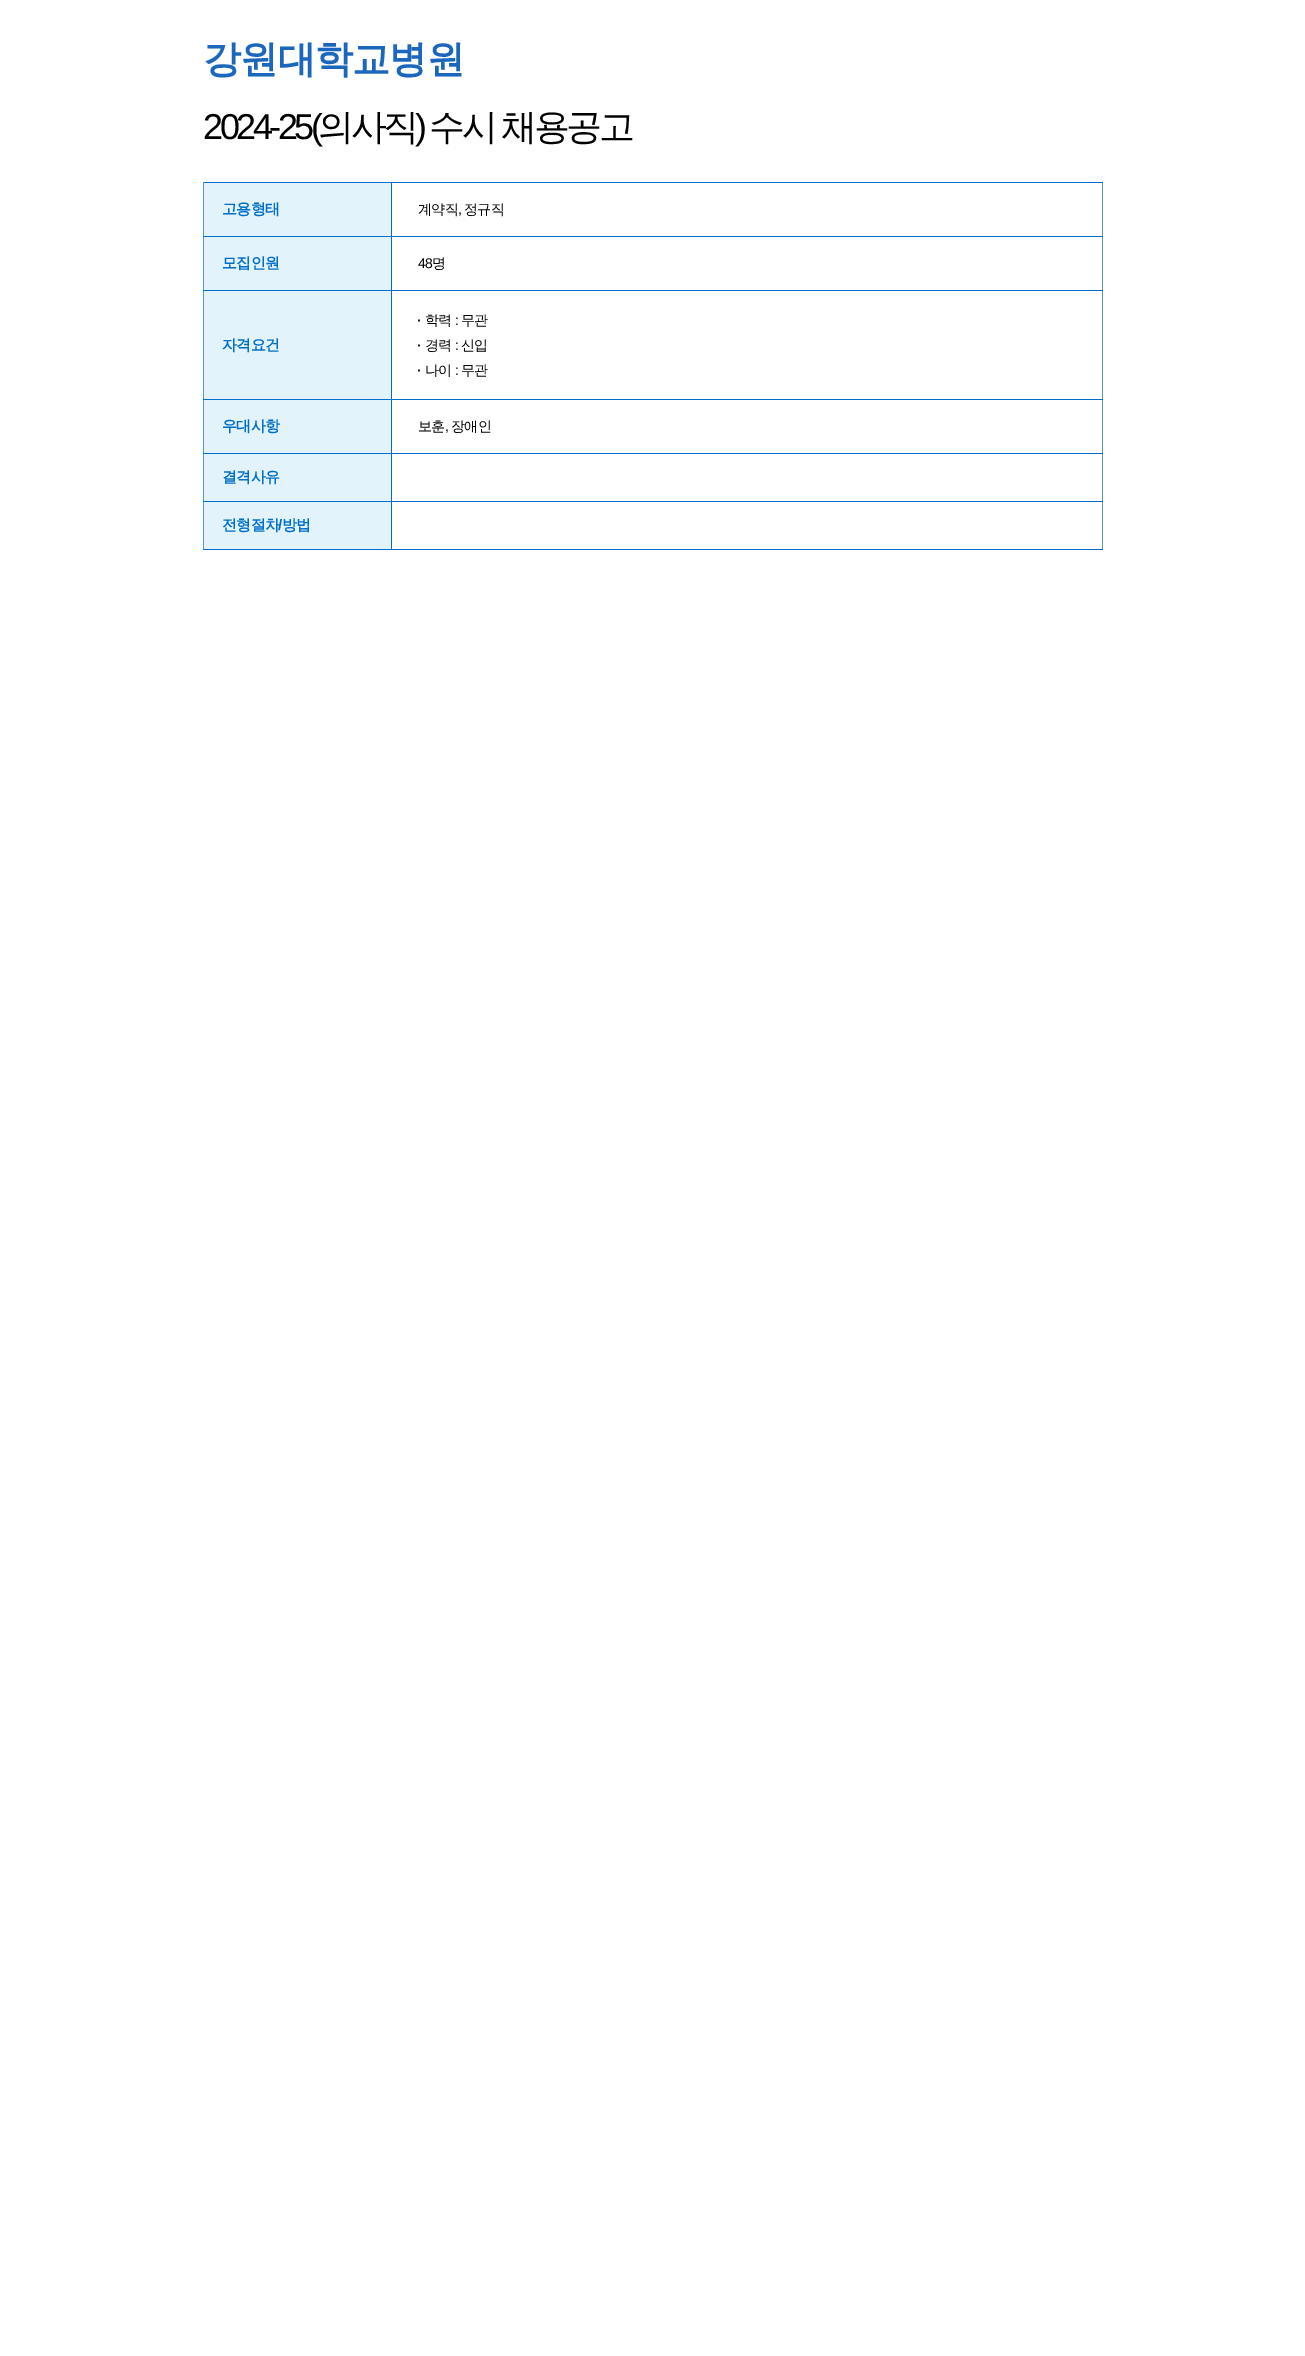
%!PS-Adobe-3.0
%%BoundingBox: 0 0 1305 2356
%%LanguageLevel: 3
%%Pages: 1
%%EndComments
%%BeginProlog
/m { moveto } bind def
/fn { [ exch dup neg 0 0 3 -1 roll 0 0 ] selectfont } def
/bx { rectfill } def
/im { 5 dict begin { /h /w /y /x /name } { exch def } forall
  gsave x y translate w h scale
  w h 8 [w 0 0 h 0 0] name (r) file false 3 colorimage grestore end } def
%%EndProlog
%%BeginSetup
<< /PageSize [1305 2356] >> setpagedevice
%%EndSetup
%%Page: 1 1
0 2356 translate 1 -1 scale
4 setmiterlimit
1 setgray
0 0 1305 2356 bx
/WenQuanYiZenHei-Bold 38 fn
0.11 0.404 0.745 setrgbcolor
203 72 m -0.75 0 (강원대학교병원) ashow
/LiberationSans-Regular 36 fn
0 setgray
203 139 m -3.5 0 (2024-25\() ashow
/WenQuanYiZenHei-Medium 36 fn
318 139 m -3.5 0 (의사직) ashow
/LiberationSans-Regular 36 fn
415 139 m -3.5 0 (\)) ashow
/WenQuanYiZenHei-Medium 36 fn
429 139 m -3.5 0 (수시 채용공고) ashow
0.004 0.431 0.796 setrgbcolor
203 182 188 1 bx
0.302 0.627 0.8 setrgbcolor
1102 182 1 368 bx
0.004 0.431 0.796 setrgbcolor
392 549 711 1 bx
0.302 0.627 0.8 setrgbcolor
203 182 1 368 bx
0.89 0.953 0.984 setrgbcolor
204 183 187 53 bx
0.004 0.431 0.796 setrgbcolor
391 182 712 1 bx
391 236 712 1 bx
391 290 712 1 bx
391 399 712 1 bx
391 453 712 1 bx
391 501 712 1 bx
391 501 1 49 bx
391 453 1 49 bx
391 399 1 55 bx
391 290 1 110 bx
391 236 1 55 bx
391 182 1 55 bx
203 236 189 1 bx
/WenQuanYiZenHei-Bold 15 fn
0 0.435 0.788 setrgbcolor
222 214 m -0.75 0 (고용형태) ashow
/WenQuanYiZenHei-Medium 14 fn
0 setgray
418 214 m -0.75 0 (계약직) ashow
/LiberationSans-Regular 14 fn
458 214 m -0.75 0 (,) ashow
/WenQuanYiZenHei-Medium 14 fn
464 214 m -0.75 0 (정규직) ashow
0.89 0.953 0.984 setrgbcolor
204 237 187 53 bx
0.004 0.431 0.796 setrgbcolor
203 290 189 1 bx
/WenQuanYiZenHei-Bold 15 fn
0 0.435 0.788 setrgbcolor
222 268 m -0.75 0 (모집인원) ashow
/LiberationSans-Regular 14 fn
0 setgray
418 268 m -0.75 0 (48) ashow
/WenQuanYiZenHei-Medium 14 fn
432 268 m -0.75 0 (명) ashow
0.89 0.953 0.984 setrgbcolor
204 291 187 108 bx
0.004 0.431 0.796 setrgbcolor
203 399 189 1 bx
/WenQuanYiZenHei-Bold 15 fn
0 0.435 0.788 setrgbcolor
222 350 m -0.75 0 (자격요건) ashow
(image0.raw) 418 319 2 3 im
/WenQuanYiZenHei-Medium 14 fn
0 setgray
425 325 m -0.75 0 (학력) ashow
/LiberationSans-Regular 14 fn
455 325 m -0.75 0 (:) ashow
/WenQuanYiZenHei-Medium 14 fn
461 325 m -0.75 0 (무관) ashow
(image0.raw) 418 344 2 3 im
425 350 m -0.75 0 (경력) ashow
/LiberationSans-Regular 14 fn
455 350 m -0.75 0 (:) ashow
/WenQuanYiZenHei-Medium 14 fn
461 350 m -0.75 0 (신입) ashow
(image0.raw) 418 369 2 3 im
425 375 m -0.75 0 (나이) ashow
/LiberationSans-Regular 14 fn
455 375 m -0.75 0 (:) ashow
/WenQuanYiZenHei-Medium 14 fn
461 375 m -0.75 0 (무관) ashow
0.89 0.953 0.984 setrgbcolor
204 400 187 53 bx
0.004 0.431 0.796 setrgbcolor
203 453 189 1 bx
/WenQuanYiZenHei-Bold 15 fn
0 0.435 0.788 setrgbcolor
222 431 m -0.75 0 (우대사항) ashow
/WenQuanYiZenHei-Medium 14 fn
0 setgray
418 431 m -0.75 0 (보훈) ashow
/LiberationSans-Regular 14 fn
445 431 m -0.75 0 (,) ashow
/WenQuanYiZenHei-Medium 14 fn
451 431 m -0.75 0 (장애인) ashow
0.89 0.953 0.984 setrgbcolor
204 454 187 47 bx
0.004 0.431 0.796 setrgbcolor
203 501 189 1 bx
/WenQuanYiZenHei-Bold 15 fn
0 0.435 0.788 setrgbcolor
222 482 m -0.75 0 (결격사유) ashow
0.89 0.953 0.984 setrgbcolor
204 502 187 47 bx
0.004 0.431 0.796 setrgbcolor
203 549 189 1 bx
0 0.435 0.788 setrgbcolor
222 530 m -0.75 0 (전형절차) ashow
/LiberationSans-Bold 15 fn
278 530 m -0.75 0 (/) ashow
/WenQuanYiZenHei-Bold 15 fn
282 530 m -0.75 0 (방법) ashow
showpage
%%EOF
